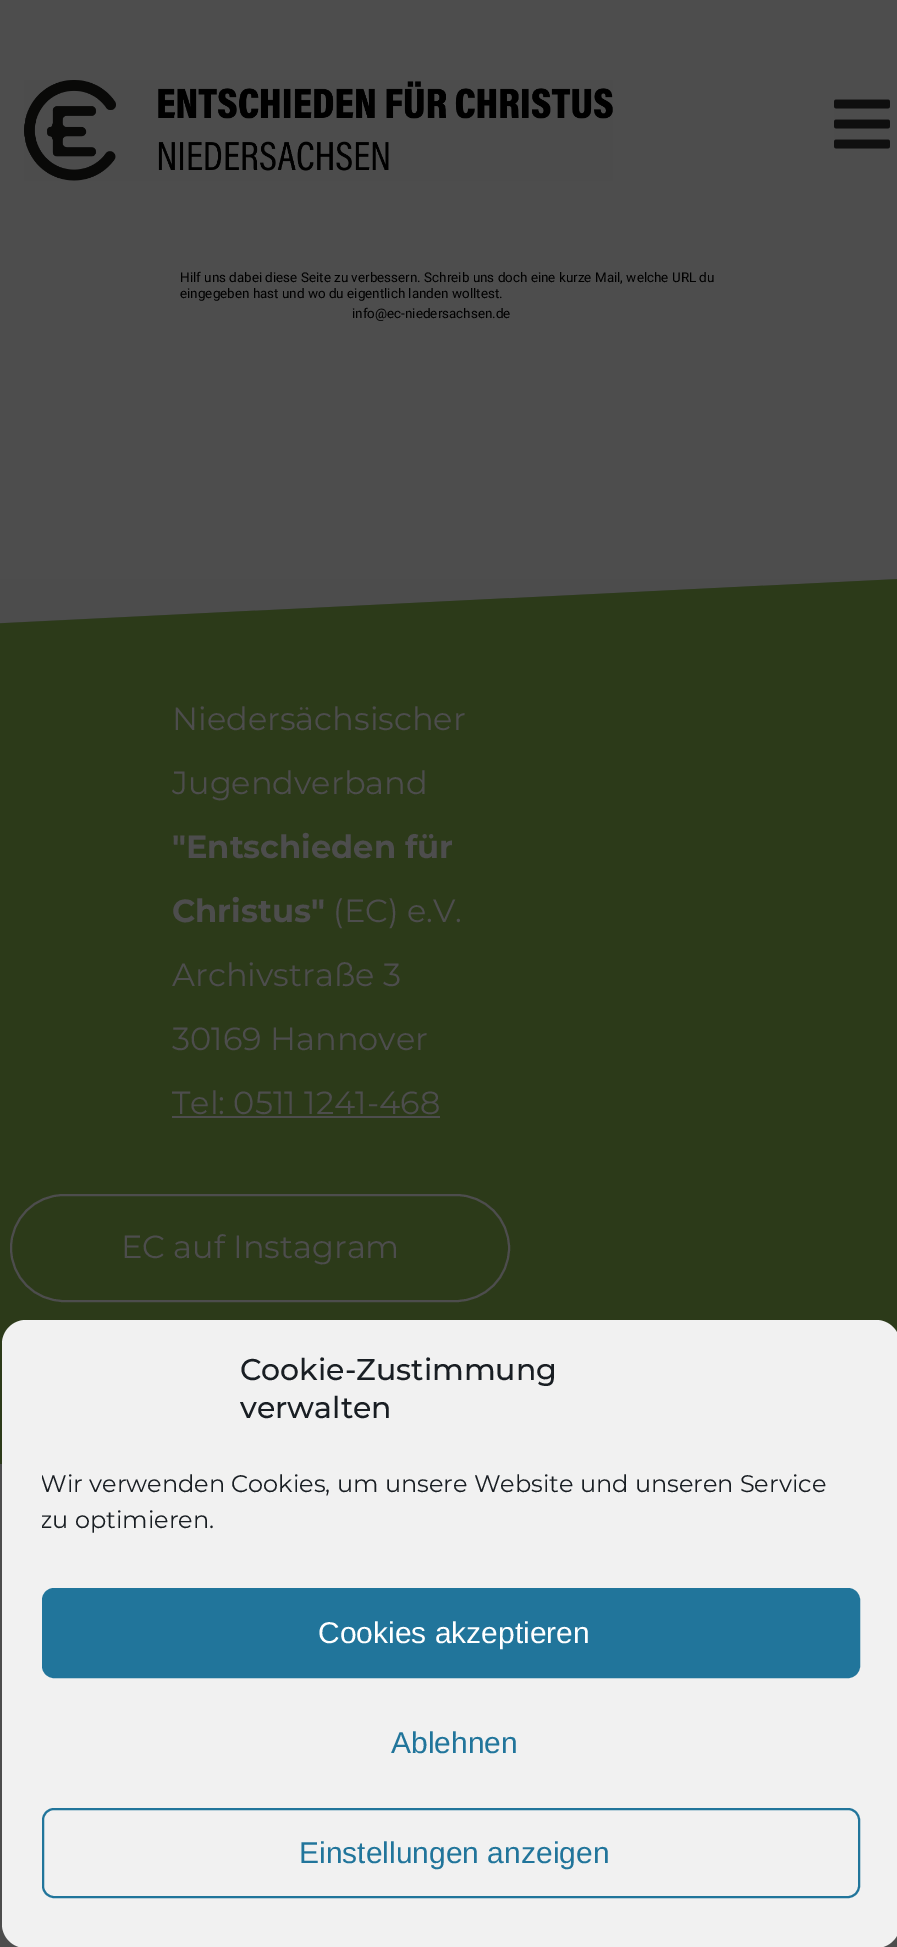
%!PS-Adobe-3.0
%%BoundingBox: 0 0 897 1947
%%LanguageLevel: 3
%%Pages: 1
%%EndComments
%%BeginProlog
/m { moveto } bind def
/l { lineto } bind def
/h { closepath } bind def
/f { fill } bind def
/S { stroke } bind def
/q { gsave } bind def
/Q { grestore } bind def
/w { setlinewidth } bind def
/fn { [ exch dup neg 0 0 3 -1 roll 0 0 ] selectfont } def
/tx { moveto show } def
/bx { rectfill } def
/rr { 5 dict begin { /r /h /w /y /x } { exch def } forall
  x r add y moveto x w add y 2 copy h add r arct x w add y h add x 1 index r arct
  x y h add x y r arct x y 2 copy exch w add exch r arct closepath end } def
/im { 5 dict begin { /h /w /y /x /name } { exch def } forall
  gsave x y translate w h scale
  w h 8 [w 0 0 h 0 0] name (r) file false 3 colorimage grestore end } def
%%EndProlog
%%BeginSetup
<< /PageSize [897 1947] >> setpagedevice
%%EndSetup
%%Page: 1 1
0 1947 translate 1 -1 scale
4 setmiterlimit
0.302 setgray
0 0 897 1947 bx
(image0.raw) 24 80 589 101 im
(image1.raw) 834 99 56 50 im
/Roboto-Regular 13.45 fn
0 setgray
(Hilf uns dabei diese Seite zu verbessern. Schreib uns doch eine kurze Mail, welche URL du) 180 282 tx
(eingegeben hast und wo du eigentlich landen wolltest.) 180 298 tx
(info@ec-niedersachsen.de) 352 318 tx
0.259 setgray
0 623 m 0 1464 l 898 1464 l 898 579 l h f
(image2.raw) 0 579 897 885 im
/Montserrat-Regular 32 fn
0.302 setgray
(Niedersächsischer) 172 730 tx
(Jugendverband) 172 794 tx
/Montserrat-Bold 32 fn
("Entschieden für) 172 858 tx
(Christus") 172 922 tx
/Montserrat-Regular 32 fn
(\(EC\) e.V.) 333 922 tx
(Archivstraße 3) 172 986 tx
(30169 Hannover) 172 1050 tx
(Tel: 0511 1241-468) 172 1114 tx
172 1116 268 2 bx
2 w
11 1195 498 106 53 rr S
(EC auf Instagram) 121 1258 tx
0.945 setgray
2 1320 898 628 24 rr f
/Montserrat-Medium 30 fn
0.098 0.118 0.137 setrgbcolor
(Cookie-Zustimmung) 240 1380 tx
(verwalten) 240 1418 tx
q
42 1466 818 82 rectclip
/Montserrat-Regular 24 fn
(Wir verwenden Cookies, um unsere Website und unseren Service) 40 1492 tx
(zu optimieren.) 40 1528 tx
Q
0.129 0.459 0.608 setrgbcolor
43 1589 816 88 11 rr q f Q
S
/LiberationSans-Regular 30 fn
1 setgray
(Cookies akzeptieren) 318 1643 tx
0.129 0.459 0.608 setrgbcolor
(Ablehnen) 391 1753 tx
43 1809 816 88 11 rr S
(Einstellungen anzeigen) 299 1863 tx
showpage
%%EOF
